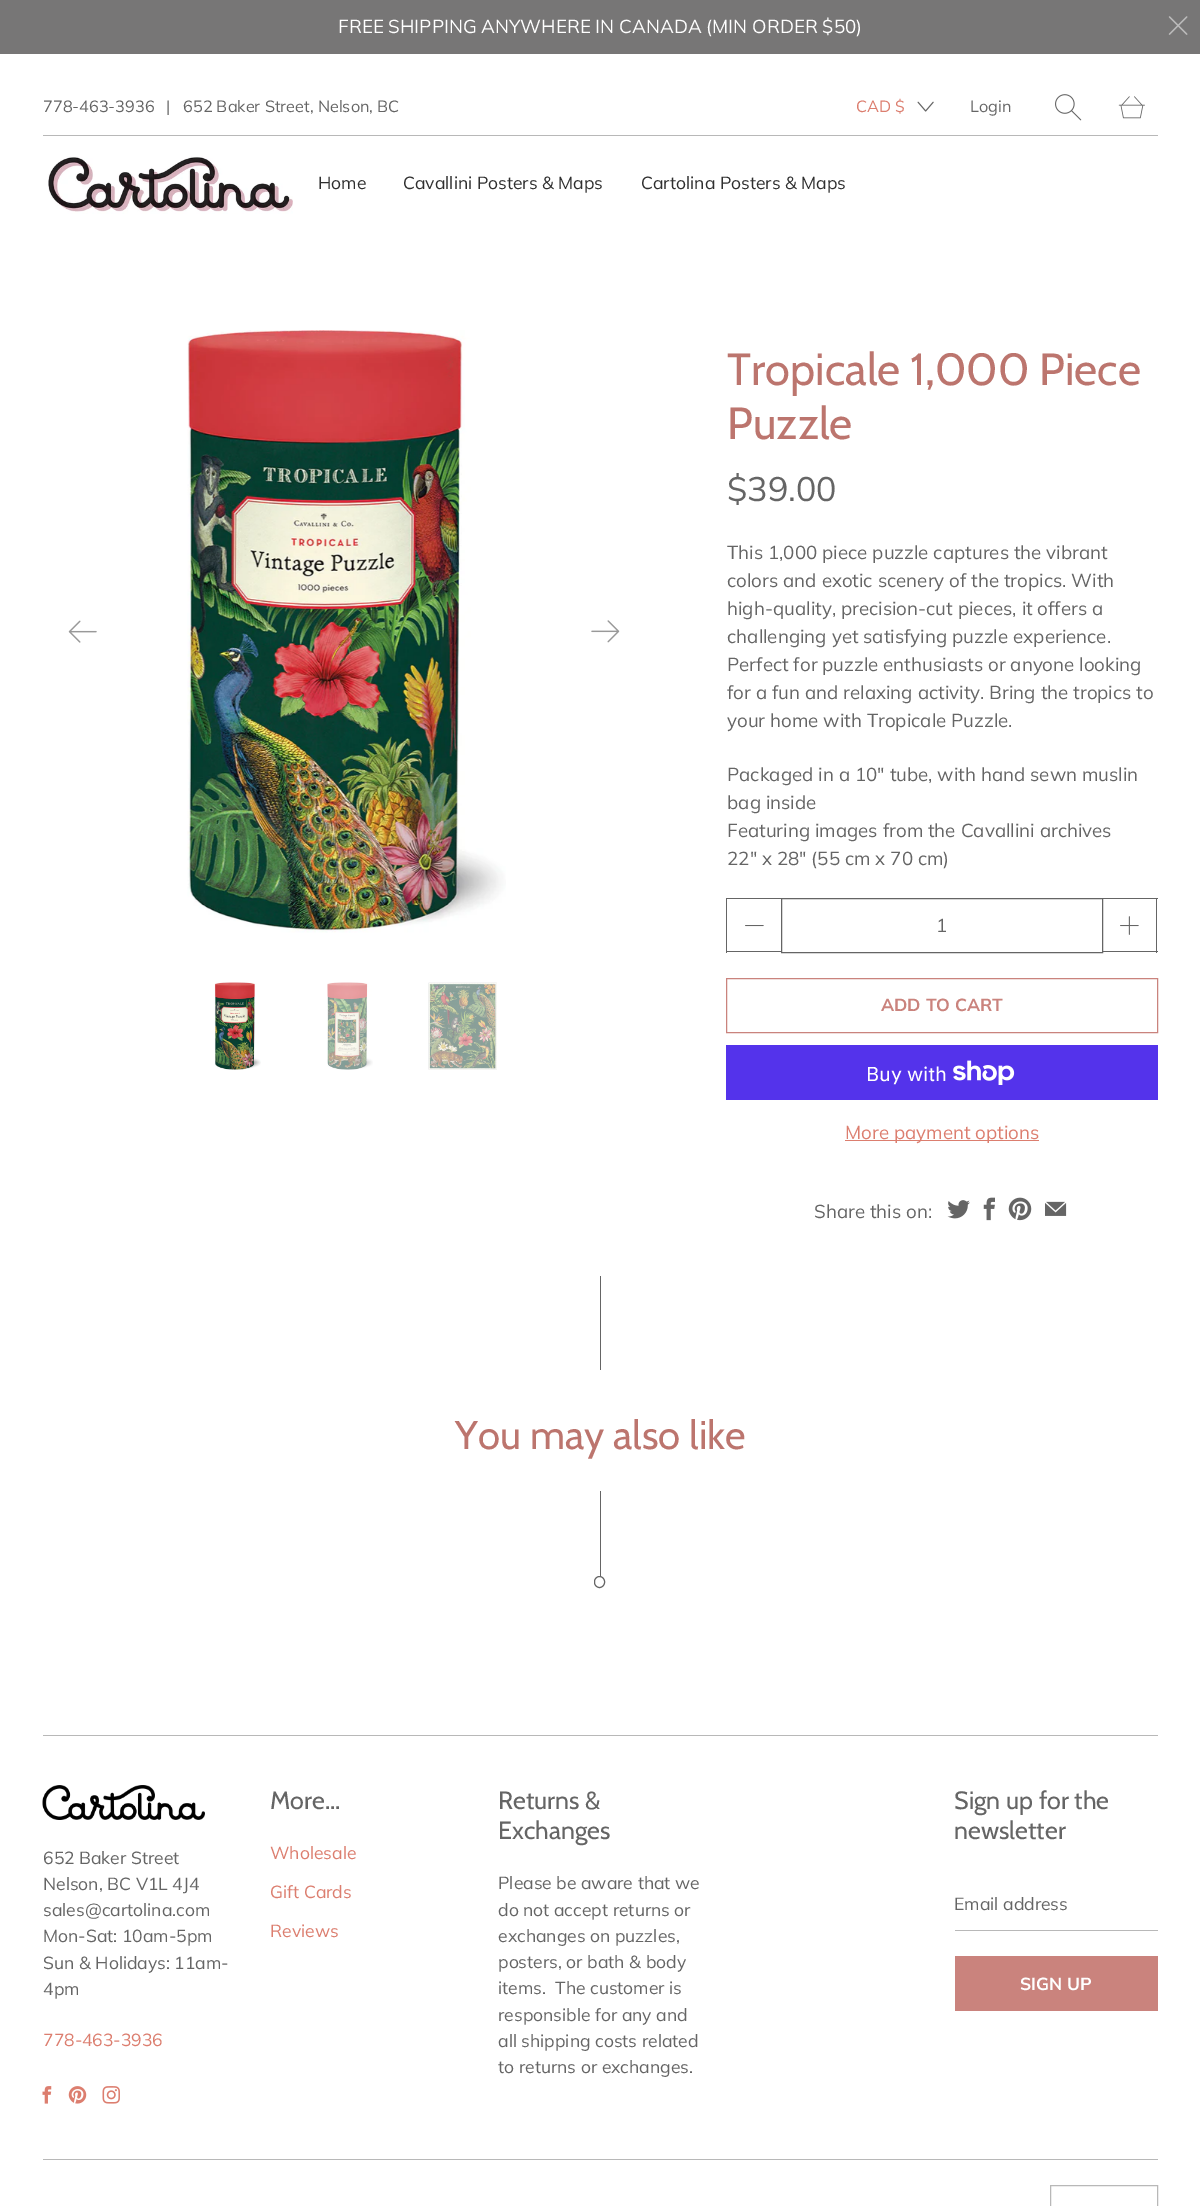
%!PS-Adobe-3.0
%%BoundingBox: 0 0 1200 2206
%%LanguageLevel: 3
%%Pages: 1
%%EndComments
%%BeginProlog
/S { stroke } bind def
/fn { [ exch dup neg 0 0 3 -1 roll 0 0 ] selectfont } def
/tx { moveto show } def
/bx { rectfill } def
/rr { 5 dict begin { /r /h /w /y /x } { exch def } forall
  x r add y moveto x w add y 2 copy h add r arct x w add y h add x 1 index r arct
  x y h add x y r arct x y 2 copy exch w add exch r arct closepath end } def
/im { 5 dict begin { /h /w /y /x /name } { exch def } forall
  gsave x y translate w h scale
  w h 8 [w 0 0 h 0 0] name (r) file false 3 colorimage grestore end } def
%%EndProlog
%%BeginSetup
<< /PageSize [1200 2206] >> setpagedevice
%%EndSetup
%%Page: 1 1
0 2206 translate 1 -1 scale
4 setmiterlimit
1 setgray
0 0 1200 2206 bx
0.467 0.463 0.463 setrgbcolor
0 0 1200 54 bx
/Muli-Regular 18.75 fn
1 setgray
(FREE SHIPPING ANYWHERE IN CANADA \(MIN ORDER $50\)) 338 33 tx
(image0.raw) 1168 16 20 19 im
0.722 setgray
43 135 1115 1 bx
/Muli-Regular 16.25 fn
0.396 setgray
(778-463-3936) 43 112 tx
(|) 166 112 tx
(652 Baker Street, Nelson, BC) 183 112 tx
0.863 0.494 0.435 setrgbcolor
(CAD $) 856 112 tx
(image1.raw) 917 101 17 11 im
0.396 setgray
(Login) 970 112 tx
(image2.raw) 1055 94 27 27 im
(image3.raw) 1118 96 27 23 im
(image4.raw) 48 156 245 58 im
/Muli-Regular 17.5 fn
0.184 setgray
(Home) 318 189 tx
(Cavallini Posters & Maps) 403 189 tx
(Cartolina Posters & Maps) 641 189 tx
(image5.raw) 68 620 29 23 im
(image6.raw) 187 330 319 603 im
(image7.raw) 591 620 29 23 im
(image8.raw) 214 982 47 88 im
(image9.raw) 327 982 46 88 im
(image10.raw) 428 982 69 88 im
/Cabin-Regular 45 fn
0.737 0.459 0.431 setrgbcolor
(Tropicale 1,000 Piece) 727 385 tx
(Puzzle) 727 439 tx
/Muli-Regular 34 fn
0.396 setgray
($39.00) 727 501 tx
/Muli-Regular 18.75 fn
(This 1,000 piece puzzle captures the vibrant) 727 559 tx
(colors and exotic scenery of the tropics. With) 727 587 tx
(high-quality, precision-cut pieces, it offers a) 727 615 tx
(challenging yet satisfying puzzle experience.) 727 643 tx
(Perfect for puzzle enthusiasts or anyone looking) 727 671 tx
(for a fun and relaxing activity. Bring the tropics to) 727 699 tx
(your home with Tropicale Puzzle.) 727 727 tx
(Packaged in a 10" tube, with hand sewn muslin) 727 781 tx
(bag inside) 727 809 tx
(Featuring images from the Cavallini archives) 727 837 tx
(22" x 28" \(55 cm x 70 cm\)) 727 865 tx
726 898 55 1 bx
726 951 55 1 bx
726 898 1 55 bx
(image11.raw) 745 925 19 2 im
781.5 898.5 321 54 rectstroke
(1) 936 932 tx
1103 898 55 1 bx
1156 898 1 55 bx
1103 951 55 1 bx
(image12.raw) 1120 916 19 19 im
0.792 0.514 0.49 setrgbcolor
726.5 978.5 431 54 rectstroke
/Muli-Bold 17.5 fn
(ADD TO CART) 881 1011 tx
0.329 0.2 0.922 setrgbcolor
726 1045 432 55 bx
/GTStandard-Regular 20 fn
1 setgray
(Buy with) 866 1081 tx
(image13.raw) 953 1060 62 25 im
0.863 0.494 0.435 setrgbcolor
845 1140 194 1 bx
/Muli-Regular 18.75 fn
(More payment options) 845 1139 tx
0.396 setgray
(Share this on:) 814 1218 tx
(image14.raw) 947 1200 23 19 im
(image15.raw) 983 1197 12 24 im
(image16.raw) 1008 1197 24 24 im
(image17.raw) 1045 1201 22 15 im
600 1276 1 94 bx
/Cabin-Regular 40 fn
0.737 0.459 0.431 setrgbcolor
(You may also like) 455 1449 tx
0.396 setgray
600 1491 1 85 bx
594.5 1576.5 10 11 5 rr S
0.722 setgray
43 1735 1115 1 bx
(image18.raw) 42 1785 163 35 im
/Muli-Regular 17.5 fn
0.396 setgray
(652 Baker Street) 43 1864 tx
(Nelson, BC V1L 4J4) 43 1890 tx
(sales@cartolina.com) 43 1916 tx
(Mon-Sat: 10am-5pm) 43 1942 tx
(Sun & Holidays: 11am-) 43 1969 tx
(4pm) 43 1995 tx
0.863 0.494 0.435 setrgbcolor
(778-463-3936) 43 2046 tx
(image19.raw) 42 2086 10 18 im
(image20.raw) 68 2086 19 18 im
(image21.raw) 102 2086 18 18 im
/Cabin-Regular 25 fn
0.396 setgray
(More...) 270 1809 tx
/Muli-Regular 17.5 fn
0.863 0.494 0.435 setrgbcolor
(Wholesale) 270 1859 tx
(Gift Cards) 270 1898 tx
(Reviews) 270 1937 tx
/Cabin-Regular 25 fn
0.396 setgray
(Returns &) 498 1809 tx
(Exchanges) 498 1839 tx
/Muli-Regular 17.5 fn
(Please be aware that we) 498 1889 tx
(do not accept returns or) 498 1916 tx
(exchanges on puzzles,) 498 1942 tx
(posters, or bath & body) 498 1968 tx
(items.  The customer is) 498 1994 tx
(responsible for any and) 498 2021 tx
(all shipping costs related) 498 2047 tx
(to returns or exchanges.) 498 2073 tx
/Cabin-Regular 25 fn
(Sign up for the) 954 1809 tx
(newsletter) 954 1839 tx
0.722 setgray
955 1930 203 1 bx
/Muli-Regular 17.5 fn
0.396 setgray
(Email address) 954 1910 tx
0.792 0.514 0.49 setrgbcolor
955 1956 203 55 bx
/Muli-Bold 17.5 fn
1 setgray
(SIGN UP) 1020 1990 tx
0.722 setgray
43 2159 1115 1 bx
1050.5 2185.5 107 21 rectstroke
showpage
%%EOF
